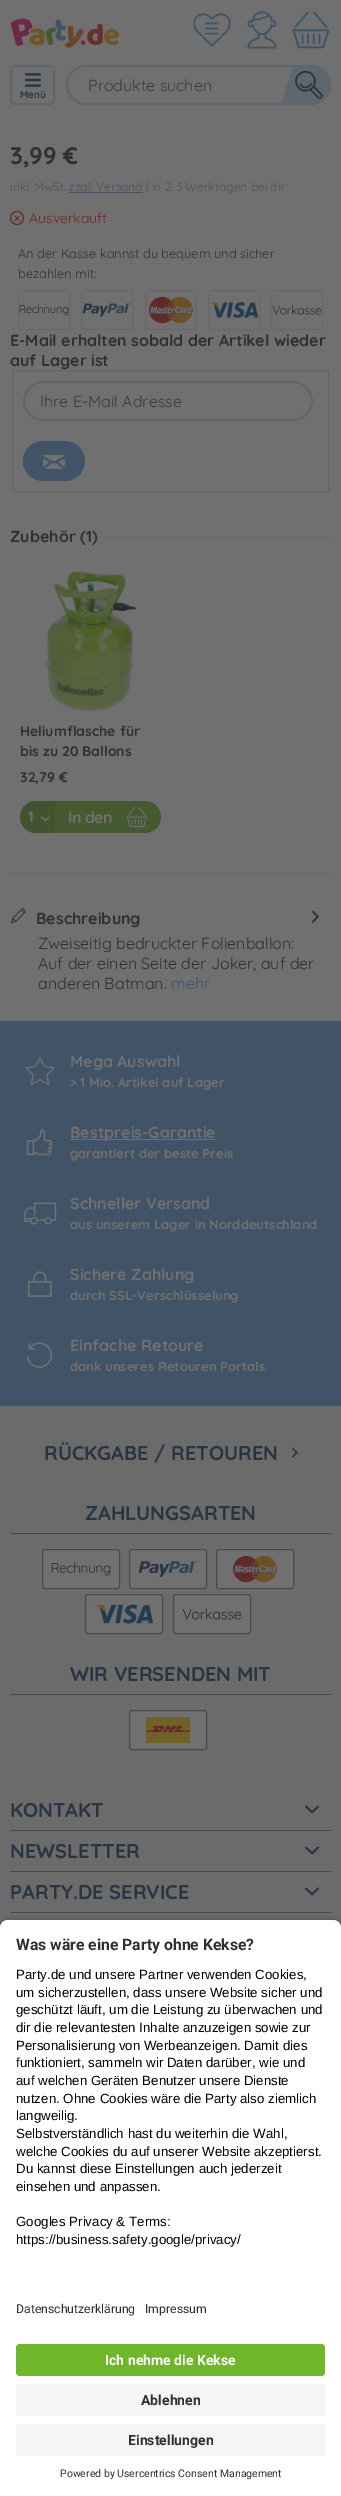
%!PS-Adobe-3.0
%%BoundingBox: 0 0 341 2496
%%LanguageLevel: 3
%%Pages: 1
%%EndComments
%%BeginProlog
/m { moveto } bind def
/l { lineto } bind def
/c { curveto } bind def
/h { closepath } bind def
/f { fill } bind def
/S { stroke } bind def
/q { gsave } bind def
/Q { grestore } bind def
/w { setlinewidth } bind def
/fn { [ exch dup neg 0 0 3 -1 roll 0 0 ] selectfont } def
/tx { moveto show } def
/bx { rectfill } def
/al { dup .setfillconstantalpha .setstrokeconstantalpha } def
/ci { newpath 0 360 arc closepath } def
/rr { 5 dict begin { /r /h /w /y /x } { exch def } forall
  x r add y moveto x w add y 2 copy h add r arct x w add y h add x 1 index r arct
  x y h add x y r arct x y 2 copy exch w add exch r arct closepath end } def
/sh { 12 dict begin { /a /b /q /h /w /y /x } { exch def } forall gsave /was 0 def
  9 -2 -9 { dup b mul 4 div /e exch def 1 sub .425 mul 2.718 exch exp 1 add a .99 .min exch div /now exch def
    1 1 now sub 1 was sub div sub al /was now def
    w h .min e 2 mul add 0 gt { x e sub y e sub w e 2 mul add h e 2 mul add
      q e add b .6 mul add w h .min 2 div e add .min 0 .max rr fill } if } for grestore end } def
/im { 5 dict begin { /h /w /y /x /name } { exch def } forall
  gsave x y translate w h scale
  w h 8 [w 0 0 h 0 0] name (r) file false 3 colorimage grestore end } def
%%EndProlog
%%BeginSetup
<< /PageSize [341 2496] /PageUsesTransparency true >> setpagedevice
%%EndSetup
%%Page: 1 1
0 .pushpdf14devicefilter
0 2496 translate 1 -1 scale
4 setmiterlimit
0.439 setgray
0 0 341 2496 bx
(image0.raw) 10 18 110 30 im
(image1.raw) 193 13 38 34 im
(image2.raw) 247 11 30 38 im
(image3.raw) 292 11 38 38 im
0.369 0.4 0.431 setrgbcolor
2 w
67 66 263 38 19 rr S
/Quicksand-Regular 16 fn
0.235 setgray
(Produkte suchen) 88 91 tx
0.369 0.4 0.431 setrgbcolor
311 85 20 ci f
293 65 m 313 65 l 301 105 l 281 105 l h f
(image4.raw) 295 70 28 29 im
11 66 43 38 4 rr S
(image5.raw) 25 73 16 14 im
/Quicksand-Bold 10 fn
0.161 0.208 0.259 setrgbcolor
(Menü) 20 98 tx
/Quicksand-Bold 24 fn
0.188 setgray
(3,99 €) 10 164 tx
/Quicksand-Regular 12 fn
0.322 setgray
(inkl. MwSt.) 10 191 tx
0.251 0.325 0.404 setrgbcolor
69 192 74 1 bx
(zzgl. Versand) 69 191 tx
0.322 setgray
(| in 2-3 Werktagen bei dir) 146 191 tx
0.427 0.165 0.161 setrgbcolor
1 w
17 218 6.5 ci S
/DejaVuSans-Regular 10 fn
(✕) 13 222 tx
/Quicksand-Regular 14 fn
(Ausverkauft) 29 223 tx
/Quicksand-Regular 12.8 fn
0.188 setgray
(An der Kasse kannst du bequem und sicher) 18 258 tx
(bezahlen mit:) 18 278 tx
0.408 setgray
18.5 290.5 51 39 2.5 rr S
(image6.raw) 19 304 50 12 im
81.5 290.5 51 39 2.5 rr S
(image7.raw) 82 303 50 14 im
145.5 290.5 50 39 2.5 rr S
(image8.raw) 149 296 44 28 im
208.5 290.5 51 39 2.5 rr S
(image9.raw) 209 302 50 16 im
271.5 290.5 51 39 2.5 rr S
(image10.raw) 272 305 50 10 im
/Quicksand-Bold 16 fn
0.188 setgray
(E-Mail erhalten sobald der Artikel wieder) 10 346 tx
(auf Lager ist) 10 366 tx
0.392 setgray
12.5 370.5 316 121 rectstroke
0.369 0.4 0.431 setrgbcolor
2 w
24 382 288 38 19 rr S
/Quicksand-Regular 16 fn
0.235 setgray
(Ihre E-Mail Adresse) 40 407 tx
0.251 0.325 0.404 setrgbcolor
23 441 62 40 20 rr f
(image11.raw) 43 454 22 15 im
0.42 setgray
108 536 223 2 bx
/Quicksand-Bold 16 fn
0.188 setgray
(Zubehör \(1\)) 10 542 tx
(image12.raw) 43 571 93 140 im
/Quicksand-Bold 14 fn
(Heliumflasche für) 20 736 tx
(bis zu 20 Ballons) 20 756 tx
(32,79 €) 20 782 tx
0.255 0.329 0.184 setrgbcolor
36 801 m 55 801 l 55 833 l 36 833 l 27 833 20 826 20 817 c 20 808 27 801 36 801 c h f
/Quicksand-Bold 15 fn
0.439 setgray
(1) 28 822 tx
(image13.raw) 41 816 9 6 im
0.271 0.353 0.192 setrgbcolor
55 801 m 145 801 l 154 801 161 808 161 817 c 161 826 154 833 145 833 c 55 833 l h f
/Quicksand-Bold 16 fn
0.439 setgray
68 823 m -0.5 0 (In den) ashow
(image14.raw) 126 806 22 22 im
0.424 0.42 0.42 setrgbcolor
10 873 321 2 bx
(image15.raw) 11 908 16 16 im
0.188 setgray
(Beschreibung) 36 924 tx
(image16.raw) 312 910 7 13 im
/Quicksand-Regular 16 fn
(Zweiseitig bedruckter Folienballon:) 38 949 tx
(Auf der einen Seite der Joker, auf der) 38 969 tx
(anderen Batman.) 38 989 tx
0.251 0.325 0.404 setrgbcolor
(mehr) 171 989 tx
0.42 setgray
0 1406 341 522 bx
0.251 0.325 0.404 setrgbcolor
0 1021 341 385 bx
(image17.raw) 25 1057 30 28 im
/Quicksand-Bold 16 fn
0.439 setgray
(Mega Auswahl) 70 1067 tx
/Quicksand-Bold 13 fn
(> 1 Mio. Artikel auf Lager) 70 1087 tx
(image18.raw) 26 1129 27 27 im
70 1139 146 1 bx
/Quicksand-Bold 16 fn
(Bestpreis-Garantie) 70 1138 tx
/Quicksand-Bold 13 fn
(garantiert der beste Preis) 70 1158 tx
(image19.raw) 23 1202 34 23 im
/Quicksand-Bold 16 fn
(Schneller Versand) 70 1209 tx
/Quicksand-Bold 13 fn
(aus unserem Lager in Norddeutschland) 70 1229 tx
(image20.raw) 28 1271 24 26 im
/Quicksand-Bold 16 fn
(Sichere Zahlung) 70 1280 tx
/Quicksand-Bold 13 fn
(durch SSL-Verschlüsselung) 70 1300 tx
(image21.raw) 26 1342 27 26 im
/Quicksand-Bold 16 fn
(Einfache Retoure) 70 1351 tx
/Quicksand-Bold 13 fn
(dank unseres Retouren Portals) 70 1371 tx
/Quicksand-Bold 20 fn
0.161 0.208 0.259 setrgbcolor
(RÜCKGABE / RETOUREN) 44 1460 tx
(image22.raw) 292 1447 6 11 im
0.286 setgray
10 1533 321 1 bx
0.161 0.208 0.259 setrgbcolor
(ZAHLUNGSARTEN) 85 1520 tx
0.439 setgray
42.5 1549.5 77 39 2.5 rr q f Q
0.286 setgray
1 w
S
(image23.raw) 51 1562 60 14 im
0.439 setgray
129.5 1549.5 77 39 2.5 rr q f Q
0.286 setgray
S
(image24.raw) 138 1561 60 16 im
0.439 setgray
216.5 1549.5 77 39 2.5 rr q f Q
0.286 setgray
S
(image25.raw) 233 1555 44 28 im
0.439 setgray
85.5 1594.5 77 39 2.5 rr q f Q
0.286 setgray
S
(image26.raw) 94 1604 60 20 im
0.439 setgray
173.5 1594.5 77 39 2.5 rr q f Q
0.286 setgray
S
(image27.raw) 182 1608 60 12 im
10 1694 321 1 bx
0.161 0.208 0.259 setrgbcolor
(WIR VERSENDEN MIT) 70 1681 tx
0.439 setgray
129.5 1710.5 77 39 2.5 rr q f Q
0.286 setgray
S
(image28.raw) 146 1717 44 26 im
10 1830 321 1 bx
0.161 0.208 0.259 setrgbcolor
(KONTAKT) 10 1817 tx
(image29.raw) 305 1805 15 9 im
0.286 setgray
10 1871 321 1 bx
0.161 0.208 0.259 setrgbcolor
(NEWSLETTER) 10 1858 tx
(image29.raw) 305 1846 15 9 im
0.286 setgray
10 1912 321 1 bx
0.161 0.208 0.259 setrgbcolor
(PARTY.DE SERVICE) 10 1899 tx
(image29.raw) 305 1887 15 9 im
0 setgray
0 1923 341 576 8 3.5 0.8 sh
1 setgray
8 1920 m 333 1920 l 337.5 1920 341 1923.5 341 1928 c 341 2286 l 0 2286 l 0 1928 l 0 1923.5 3.5 1920 8 1920 c h f
/Roboto-Bold 15.75 fn
0.188 setgray
(Was wäre eine Party ohne Kekse?) 16 1950 tx
/LiberationSans-Regular 13.3 fn
0 setgray
(Party.de und unsere Partner verwenden Cookies,) 16 1979 tx
(um sicherzustellen, dass unsere Website sicher und) 16 1997 tx
(geschützt läuft, um die Leistung zu überwachen und) 16 2014 tx
(dir die relevantesten Inhalte anzuzeigen sowie zur) 16 2032 tx
(Personalisierung von Werbeanzeigen. Damit dies) 16 2050 tx
(funktioniert, sammeln wir Daten darüber, wie und) 16 2067 tx
(auf welchen Geräten Benutzer unsere Dienste) 16 2085 tx
(nutzen. Ohne Cookies wäre die Party also ziemlich) 16 2103 tx
(langweilig.) 16 2120 tx
(Selbstverständlich hast du weiterhin die Wahl,) 16 2138 tx
(welche Cookies du auf unserer Website akzeptierst.) 16 2156 tx
(Du kannst diese Einstellungen auch jederzeit) 16 2173 tx
(einsehen und anpassen.) 16 2191 tx
(Googles Privacy & Terms:) 16 2226 tx
(https://business.safety.google/privacy/) 16 2244 tx
1 setgray
0 2286 341 210 bx
/Roboto-Regular 12.25 fn
0.188 setgray
(Datenschutzerklärung) 16 2313 tx
(Impressum) 145 2313 tx
0.435 0.714 0.169 setrgbcolor
16 2344 309 32 4 rr f
/Roboto-Bold 14 fn
0.98 setgray
(Ich nehme die Kekse) 105 2365 tx
0.961 setgray
16 2384 309 32 4 rr f
0.188 setgray
(Ablehnen) 141 2405 tx
0.961 setgray
16 2424 309 32 4 rr f
0.188 setgray
(Einstellungen) 128 2445 tx
/Roboto-Regular 10.5 fn
(Powered by Usercentrics Consent Management) 60 2477 tx
.poppdf14devicefilter showpage
%%EOF
